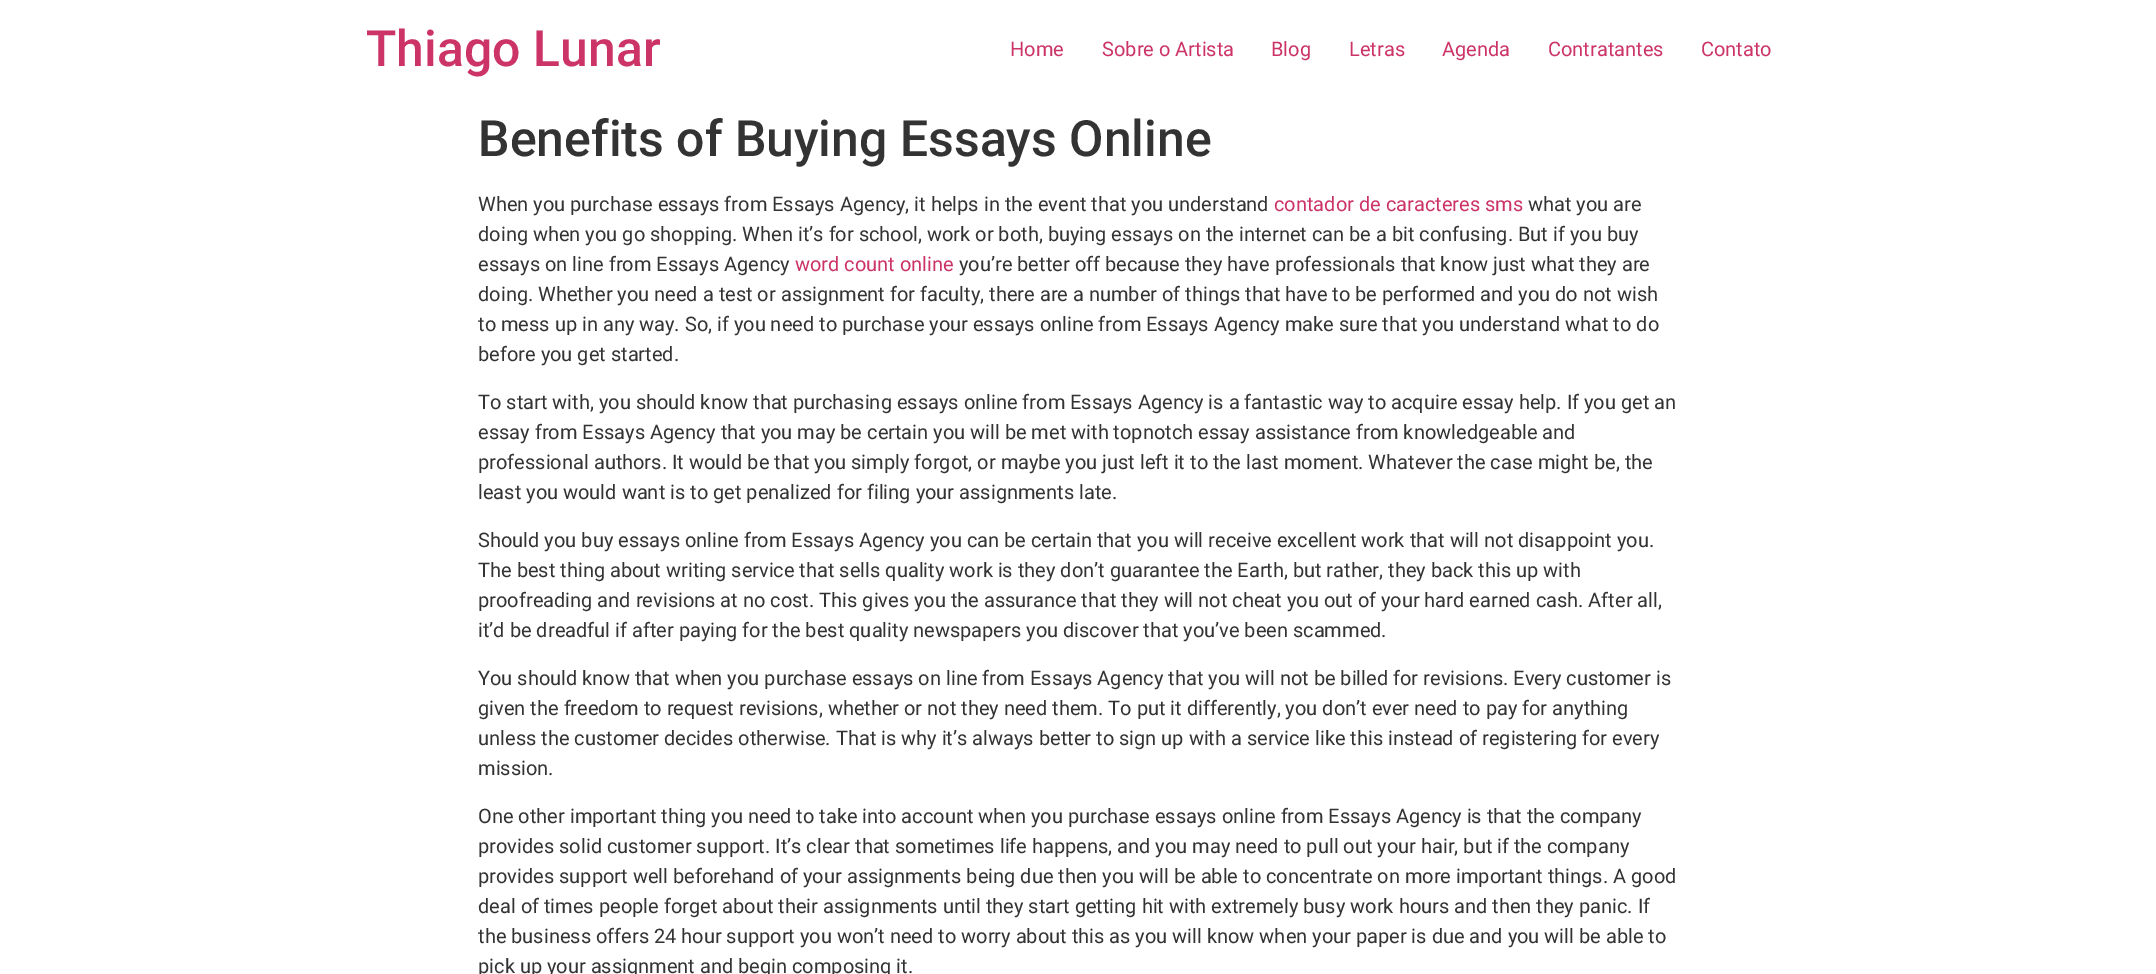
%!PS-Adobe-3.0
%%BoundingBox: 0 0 2156 974
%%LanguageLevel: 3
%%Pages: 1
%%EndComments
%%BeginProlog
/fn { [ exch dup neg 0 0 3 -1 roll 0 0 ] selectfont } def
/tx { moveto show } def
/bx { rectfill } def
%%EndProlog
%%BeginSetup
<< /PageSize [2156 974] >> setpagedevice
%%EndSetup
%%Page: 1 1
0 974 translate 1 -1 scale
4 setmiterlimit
1 setgray
0 0 2156 974 bx
/Roboto-Medium 50 fn
0.8 0.2 0.4 setrgbcolor
(Thiago Lunar) 366 66 tx
/Roboto-Regular 20 fn
(Home) 1010 56 tx
(Sobre o Artista) 1102 56 tx
(Blog) 1271 56 tx
(Letras) 1349 56 tx
(Agenda) 1442 56 tx
(Contratantes) 1548 56 tx
(Contato) 1701 56 tx
/Roboto-Medium 50 fn
0.2 setgray
(Benefits of Buying Essays Online) 478 156 tx
/Roboto-Regular 20 fn
(When you purchase essays from Essays Agency, it helps in the event that you understand) 478 211 tx
0.8 0.2 0.4 setrgbcolor
(contador de caracteres sms) 1274 211 tx
0.2 setgray
(what you are) 1528 211 tx
(doing when you go shopping. When it’s for school, work or both, buying essays on the internet can be a bit confusing. But if you buy) 478 241 tx
(essays on line from Essays Agency) 478 271 tx
0.8 0.2 0.4 setrgbcolor
(word count online) 795 271 tx
0.2 setgray
(you’re better off because they have professionals that know just what they are) 959 271 tx
(doing. Whether you need a test or assignment for faculty, there are a number of things that have to be performed and you do not wish) 478 301 tx
(to mess up in any way. So, if you need to purchase your essays online from Essays Agency make sure that you understand what to do) 478 331 tx
(before you get started.) 478 361 tx
(To start with, you should know that purchasing essays online from Essays Agency is a fantastic way to acquire essay help. If you get an) 478 409 tx
(essay from Essays Agency that you may be certain you will be met with topnotch essay assistance from knowledgeable and) 478 439 tx
(professional authors. It would be that you simply forgot, or maybe you just left it to the last moment. Whatever the case might be, the) 478 469 tx
(least you would want is to get penalized for filing your assignments late.) 478 499 tx
(Should you buy essays online from Essays Agency you can be certain that you will receive excellent work that will not disappoint you.) 478 547 tx
(The best thing about writing service that sells quality work is they don’t guarantee the Earth, but rather, they back this up with) 478 577 tx
(proofreading and revisions at no cost. This gives you the assurance that they will not cheat you out of your hard earned cash. After all,) 478 607 tx
(it’d be dreadful if after paying for the best quality newspapers you discover that you’ve been scammed.) 478 637 tx
(You should know that when you purchase essays on line from Essays Agency that you will not be billed for revisions. Every customer is) 478 685 tx
(given the freedom to request revisions, whether or not they need them. To put it differently, you don’t ever need to pay for anything) 478 715 tx
(unless the customer decides otherwise. That is why it’s always better to sign up with a service like this instead of registering for every) 478 745 tx
(mission.) 478 775 tx
(One other important thing you need to take into account when you purchase essays online from Essays Agency is that the company) 478 823 tx
(provides solid customer support. It’s clear that sometimes life happens, and you may need to pull out your hair, but if the company) 478 853 tx
(provides support well beforehand of your assignments being due then you will be able to concentrate on more important things. A good) 478 883 tx
(deal of times people forget about their assignments until they start getting hit with extremely busy work hours and then they panic. If) 478 913 tx
(the business offers 24 hour support you won’t need to worry about this as you will know when your paper is due and you will be able to) 478 943 tx
(pick up your assignment and begin composing it.) 478 973 tx
showpage
%%EOF
